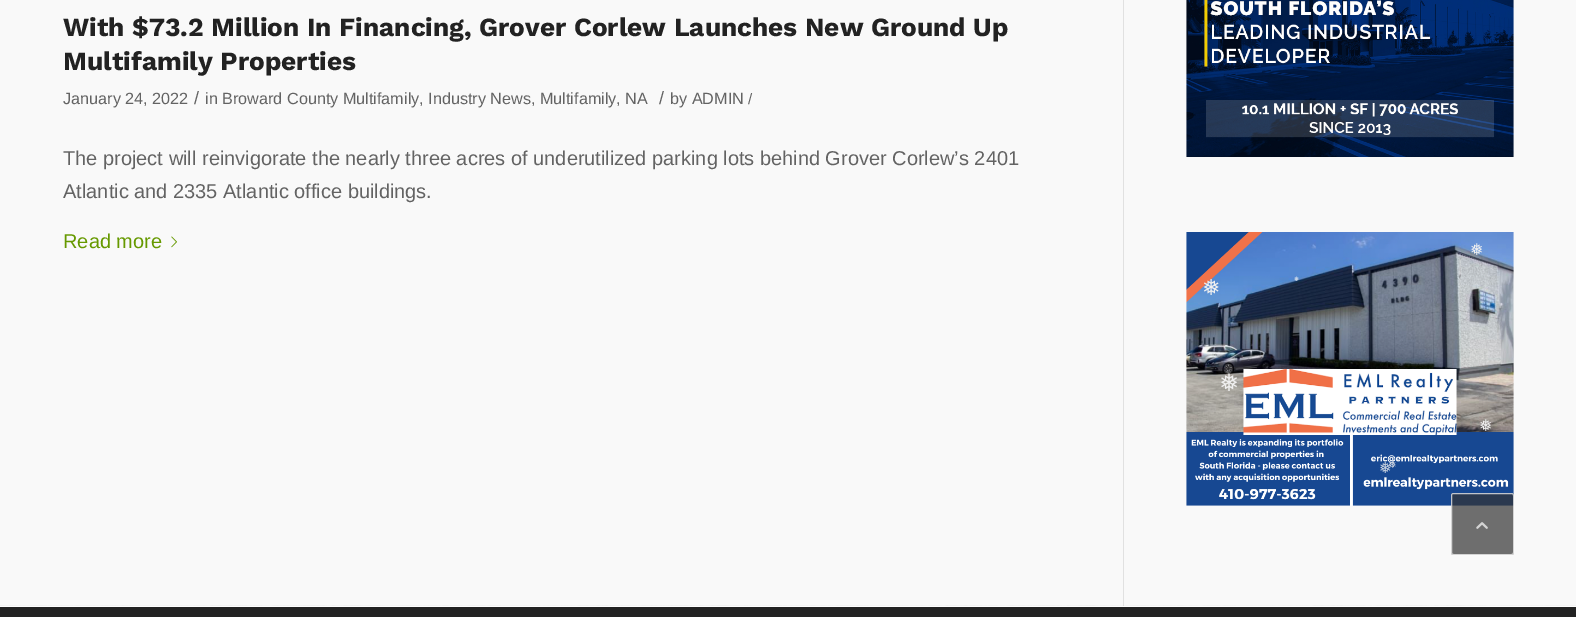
%!PS-Adobe-3.0
%%BoundingBox: 0 0 1576 617
%%LanguageLevel: 3
%%Pages: 1
%%EndComments
%%BeginProlog
/f { fill } bind def
/S { stroke } bind def
/fn { [ exch dup neg 0 0 3 -1 roll 0 0 ] selectfont } def
/tx { moveto show } def
/bx { rectfill } def
/al { dup .setfillconstantalpha .setstrokeconstantalpha } def
/rr { 5 dict begin { /r /h /w /y /x } { exch def } forall
  x r add y moveto x w add y 2 copy h add r arct x w add y h add x 1 index r arct
  x y h add x y r arct x y 2 copy exch w add exch r arct closepath end } def
/im { 5 dict begin { /h /w /y /x /name } { exch def } forall
  gsave x y translate w h scale
  w h 8 [w 0 0 h 0 0] name (r) file false 3 colorimage grestore end } def
%%EndProlog
%%BeginSetup
<< /PageSize [1576 617] /PageUsesTransparency true >> setpagedevice
%%EndSetup
%%Page: 1 1
0 .pushpdf14devicefilter
0 617 translate 1 -1 scale
4 setmiterlimit
0.976 setgray
0 0 1576 617 bx
/WorkSans-Bold 26.25 fn
0.133 setgray
(With $73.2 Million In Financing, Grover Corlew Launches New Ground Up) 63 36 tx
(Multifamily Properties) 63 70 tx
/LiberationSans-Regular 16.2 fn
0.388 setgray
(January 24, 2022) 63 104 tx
/LiberationSans-Regular 18 fn
(/) 194 104 tx
/LiberationSans-Regular 16.2 fn
(in Broward County Multifamily, Industry News, Multifamily, NA) 205 104 tx
/LiberationSans-Regular 18 fn
(/) 659 104 tx
/LiberationSans-Regular 16.2 fn
(by ADMIN) 670 104 tx
/LiberationSans-Regular 15 fn
(/) 748 104 tx
/LiberationSans-Regular 20 fn
(The project will reinvigorate the nearly three acres of underutilized parking lots behind Grover Corlew’s 2401) 63 165 tx
(Atlantic and 2335 Atlantic office buildings.) 63 198 tx
0.4 0.6 0 setrgbcolor
(Read more) 63 248 tx
(image0.raw) 171 236 6 12 im
0.882 setgray
1123 0 1 606 bx
(image1.raw) 1186 0 328 157 im
(image2.raw) 1186 232 328 274 im
0.133 setgray
0 607 1576 10 bx
(image3.raw) 0 605 1576 1 im
1 setgray
0 606 1576 1 bx
/DejaVuSans-Regular 16 fn
0.937 setgray
(❅) 1470 255 tx
/DejaVuSans-Regular 22 fn
(❅) 1202 295 tx
/DejaVuSans-Regular 6 fn
(❅) 1294 281 tx
/DejaVuSans-Regular 24 fn
(❅) 1219 391 tx
/DejaVuSans-Regular 16 fn
(❅) 1479 431 tx
/DejaVuSans-Regular 15 fn
0.792 0.827 0.875 setrgbcolor
(❅) 1379 473 tx
/DejaVuSans-Regular 10 fn
0.827 0.851 0.89 setrgbcolor
(❅) 1388 468 tx
0.7 al
0.2 setgray
1451 493 63 62 2.5 rr f
1 setgray
1451.5 493.5 62 61 2 rr S
1 al
(image4.raw) 1476 522 12 7 im
.poppdf14devicefilter showpage
%%EOF
